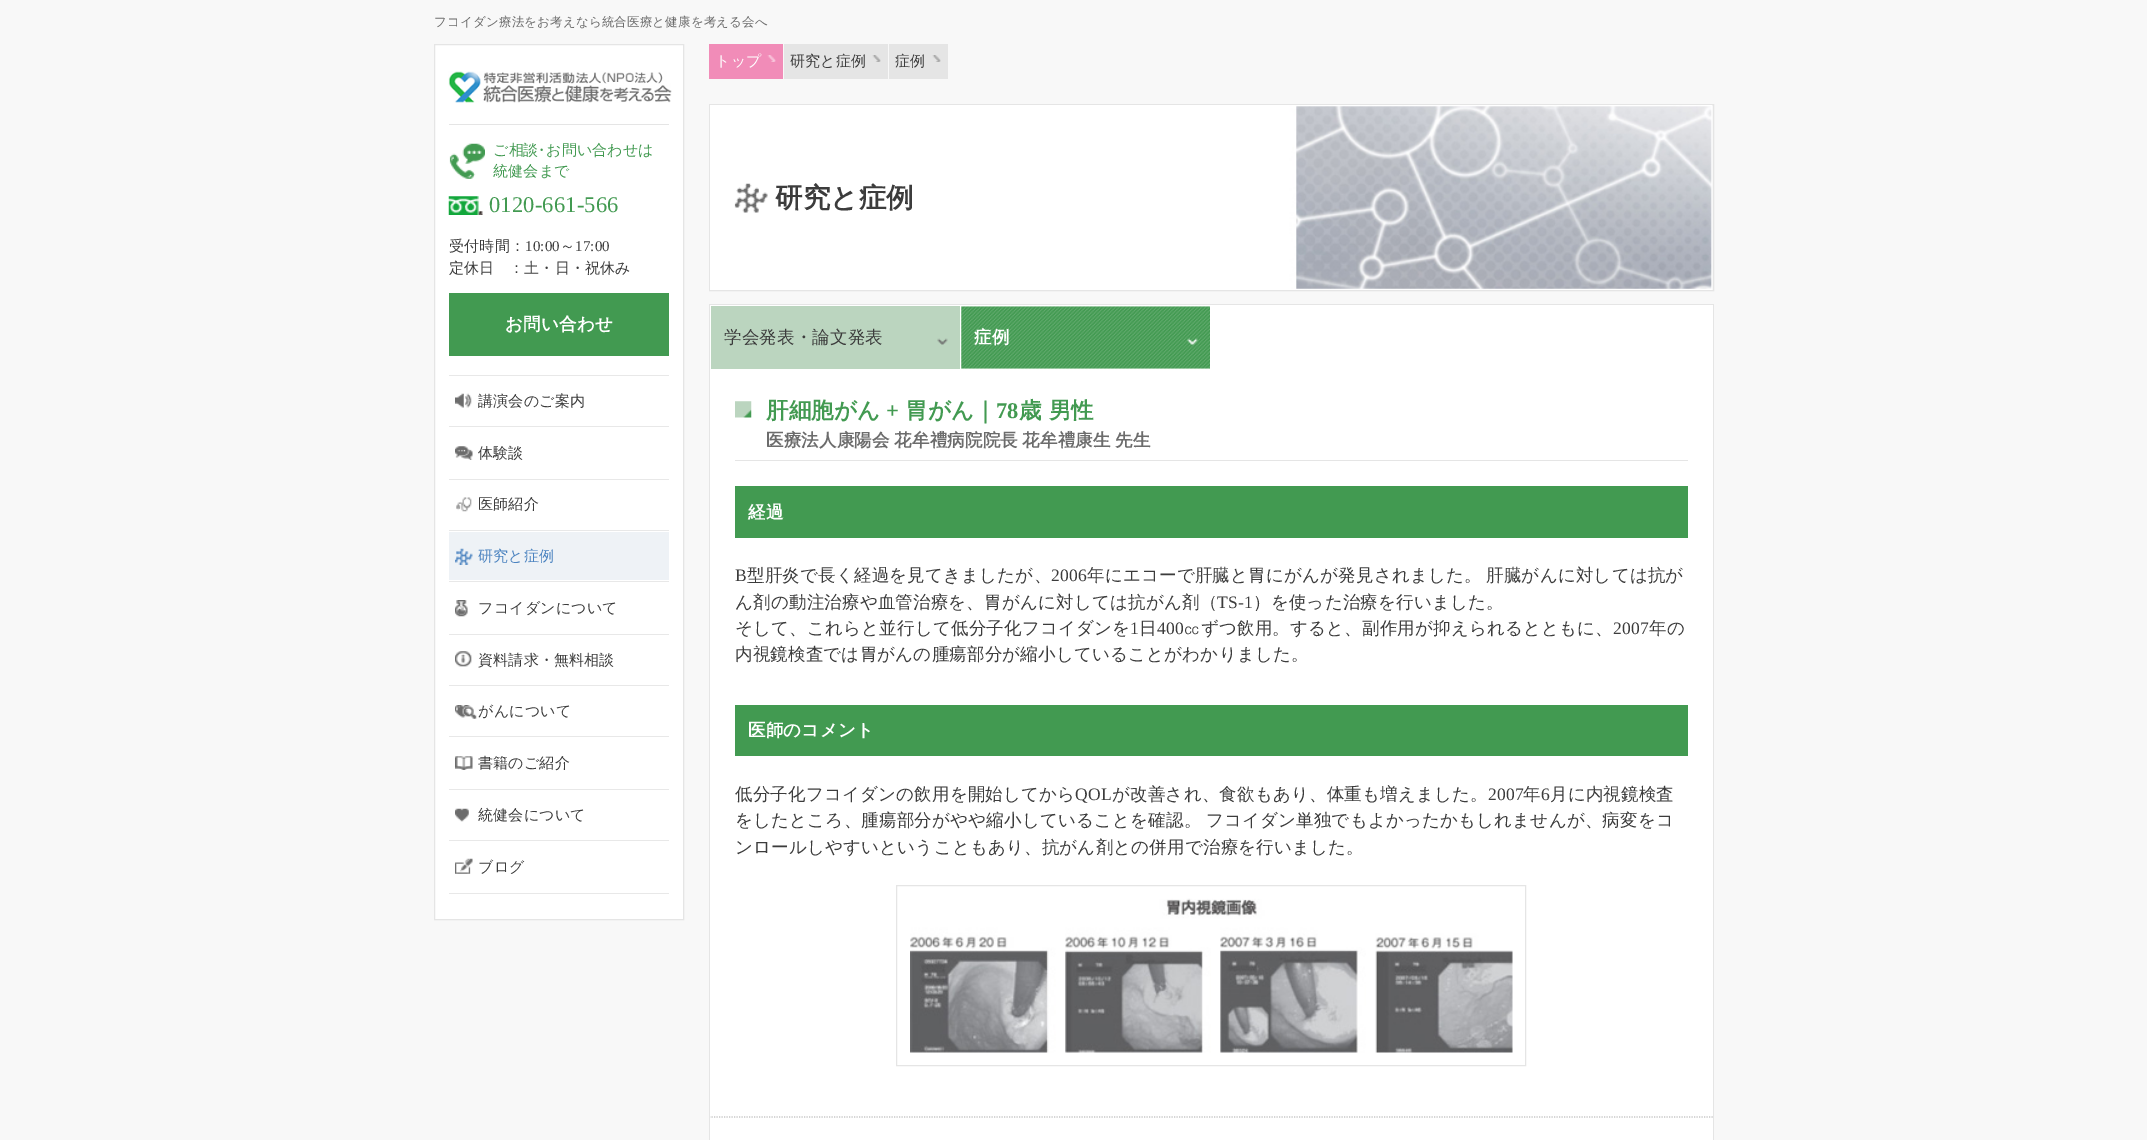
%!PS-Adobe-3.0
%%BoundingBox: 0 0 2147 1140
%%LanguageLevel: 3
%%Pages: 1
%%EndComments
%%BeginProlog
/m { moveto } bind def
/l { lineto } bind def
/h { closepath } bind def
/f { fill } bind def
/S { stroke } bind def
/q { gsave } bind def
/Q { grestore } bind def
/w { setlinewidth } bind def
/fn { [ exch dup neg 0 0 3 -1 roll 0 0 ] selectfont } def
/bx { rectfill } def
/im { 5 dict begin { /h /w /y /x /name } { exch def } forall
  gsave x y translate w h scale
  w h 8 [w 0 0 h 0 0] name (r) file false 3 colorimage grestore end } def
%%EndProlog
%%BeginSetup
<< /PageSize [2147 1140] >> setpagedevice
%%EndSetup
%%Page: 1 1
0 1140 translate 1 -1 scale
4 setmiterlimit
0.973 setgray
0 0 2147 1140 bx
/WenQuanYiZenHei-Medium 12.5 fn
0.424 setgray
434 26 m 0.18 0 (フコイダン療法をお考えなら統合医療と健康を考える会へ) ashow
1 setgray
434.5 44.5 m 683.5 44.5 l 683.5 919.5 l 434.5 919.5 l h q f Q
0.898 setgray
S
(image0.raw) 448 71 224 32 im
449 124 220 1 bx
(image1.raw) 449 143 36 36 im
/WenQuanYiZenHei-Medium 15 fn
0.259 0.604 0.318 setrgbcolor
493 155 m 0.18 0 (ご相) ashow
523 155 m -4 0 (談・) ashow
546 155 m 0.18 0 (お問い合わせは) ashow
493 176 m 0.18 0 (統健会まで) ashow
(image2.raw) 448 196 35 19 im
/LiberationSerif-Regular 22.5 fn
489 212 m 0.18 0 (0120-661-566) ashow
/WenQuanYiZenHei-Medium 15 fn
0.235 setgray
449 251 m 0.18 0 (受付時間：) ashow
/LiberationSerif-Regular 15 fn
525 251 m 0.18 0 (10:00) ashow
/WenQuanYiZenHei-Medium 15 fn
560 251 m 0.18 0 (～) ashow
/LiberationSerif-Regular 15 fn
575 251 m 0.18 0 (17:00) ashow
/WenQuanYiZenHei-Medium 15 fn
449 273 m 0.18 0 (定休日) ashow
509 273 m 0.18 0 (：土・日・祝休み) ashow
0.259 0.604 0.318 setrgbcolor
449 293 220 63 bx
/WenQuanYiZenHei-Bold 17.5 fn
1 setgray
505 330 m 0.18 0 (お問い合わせ) ashow
0.91 setgray
449 375 220 1 bx
449 426 220 1 bx
(image3.raw) 455 393 17 15 im
/WenQuanYiZenHei-Medium 15 fn
0.235 setgray
478 406 m 0.18 0 (講演会のご案内) ashow
0.91 setgray
449 479 220 1 bx
(image4.raw) 455 446 18 14 im
0.235 setgray
478 458 m 0.18 0 (体験談) ashow
0.91 setgray
449 530 220 1 bx
(image5.raw) 456 497 16 15 im
0.235 setgray
478 509 m 0.18 0 (医師紹介) ashow
0.91 setgray
449 581 220 1 bx
0.933 0.949 0.965 setrgbcolor
449 532 220 48 bx
(image6.raw) 455 548 18 17 im
0.294 0.514 0.753 setrgbcolor
478 561 m 0.18 0 (研究と症例) ashow
0.91 setgray
449 634 220 1 bx
(image7.raw) 455 600 13 17 im
0.235 setgray
478 613 m 0.18 0 (フコイダンについて) ashow
0.91 setgray
449 685 220 1 bx
(image8.raw) 455 651 17 16 im
0.235 setgray
478 665 m 0.18 0 (資料請求・無料相談) ashow
0.91 setgray
449 736 220 1 bx
(image9.raw) 455 705 22 14 im
0.235 setgray
478 716 m 0.18 0 (がんについて) ashow
0.91 setgray
449 789 220 1 bx
(image10.raw) 455 756 18 14 im
0.235 setgray
478 768 m 0.18 0 (書籍のご紹介) ashow
0.91 setgray
449 840 220 1 bx
(image11.raw) 455 808 14 14 im
0.235 setgray
478 820 m 0.18 0 (統健会について) ashow
0.91 setgray
449 893 220 1 bx
(image12.raw) 455 858 18 16 im
0.235 setgray
478 872 m 0.18 0 (ブログ) ashow
0.945 0.549 0.722 setrgbcolor
709 44 74 35 bx
1 setgray
715 66 m 0.18 0 (トップ) ashow
(image13.raw) 767 55 9 7 im
0.898 setgray
784 44 104 35 bx
0.235 setgray
790 66 m 0.18 0 (研究と症例) ashow
(image14.raw) 872 55 9 7 im
0.898 setgray
889 44 59 35 bx
0.235 setgray
895 66 m 0.18 0 (症例) ashow
(image15.raw) 932 55 9 7 im
0.898 setgray
709.5 104.5 1004 186 rectstroke
(image16.raw) 710 105 1002 185 im
(image17.raw) 734 183 34 30 im
/WenQuanYiZenHei-Bold 27.5 fn
0.235 setgray
775 207 m 0.18 0 (研究と症例) ashow
1 setgray
710 305 1003 835 bx
0.898 setgray
709 304 1005 1 bx
1713 304 1 836 bx
709 304 1 812 bx
0.733 0.835 0.749 setrgbcolor
711 306 249 63 bx
/WenQuanYiZenHei-Medium 17.5 fn
0.235 setgray
724 343 m 0.18 0 (学会発表・論文発表) ashow
(image18.raw) 937 338 11 7 im
(image19.raw) 961 306 249 63 im
/WenQuanYiZenHei-Bold 17.5 fn
1 setgray
974 343 m 0.18 0 (症例) ashow
(image20.raw) 1187 338 11 7 im
(image21.raw) 735 401 17 17 im
0.898 setgray
735 460 953 1 bx
/WenQuanYiZenHei-Bold 22.5 fn
0.259 0.604 0.318 setrgbcolor
766 418 m 0.18 0 (肝細胞がん) ashow
/LiberationSerif-Bold 22.5 fn
886 418 m 0.18 0 (+) ashow
/WenQuanYiZenHei-Bold 22.5 fn
905 418 m 0.18 0 (胃がん｜) ashow
/LiberationSerif-Bold 22.5 fn
996 418 m 0.18 0 (78) ashow
/WenQuanYiZenHei-Bold 22.5 fn
1019 418 m 0.18 0 (歳 男性) ashow
/WenQuanYiZenHei-Bold 17.5 fn
0.424 setgray
766 446 m -1 0 32 0.18 0 (医療法人康陽会 花牟禮病院院長 花牟禮康生 先生) awidthshow
0.259 0.604 0.318 setrgbcolor
735 486 953 52 bx
1 setgray
748 518 m 0.18 0 (経過) ashow
/LiberationSerif-Regular 17.5 fn
0.235 setgray
735 581 m 0.18 0 (B) ashow
/WenQuanYiZenHei-Medium 17.5 fn
747 581 m 0.18 0 (型肝炎で長く経過を見てきましたが、) ashow
/LiberationSerif-Regular 17.5 fn
1051 581 m 0.18 0 (2006) ashow
/WenQuanYiZenHei-Medium 17.5 fn
1087 581 m -1 0 32 0.18 0 (年にエコーで肝臓と胃にがんが発見されました。 肝臓がんに対しては抗が) awidthshow
735 608 m 0.18 0 (ん剤の動注治療や血管治療を、胃がんに対しては抗がん剤（) ashow
/LiberationSerif-Regular 17.5 fn
1217 608 m 0.18 0 (TS-1) ashow
/WenQuanYiZenHei-Medium 17.5 fn
1253 608 m 0.18 0 (）を使った治療を行いました。) ashow
735 634 m 0.18 0 (そして、これらと並行して低分子化フコイダンを) ashow
/LiberationSerif-Regular 17.5 fn
1130 634 m 0.18 0 (1) ashow
/WenQuanYiZenHei-Medium 17.5 fn
1139 634 m 0.18 0 (日) ashow
/LiberationSerif-Regular 17.5 fn
1157 634 m 0.18 0 (400) ashow
/WenQuanYiZenHei-Medium 17.5 fn
1183 634 m 0.18 0 (㏄ずつ飲用。すると、副作用が抑えられるとともに、) ashow
/LiberationSerif-Regular 17.5 fn
1613 634 m 0.18 0 (2007) ashow
/WenQuanYiZenHei-Medium 17.5 fn
1649 634 m 0.18 0 (年の) ashow
735 660 m 0.18 0 (内視鏡検査では胃がんの腫瘍部分が縮小していることがわかりました。) ashow
0.259 0.604 0.318 setrgbcolor
735 705 953 51 bx
/WenQuanYiZenHei-Bold 17.5 fn
1 setgray
748 736 m 0.18 0 (医師のコメント) ashow
/WenQuanYiZenHei-Medium 17.5 fn
0.235 setgray
735 800 m 0.18 0 (低分子化フコイダンの飲用を開始してから) ashow
/LiberationSerif-Regular 17.5 fn
1075 800 m 0.18 0 (QOL) ashow
/WenQuanYiZenHei-Medium 17.5 fn
1112 800 m 0.18 0 (が改善され、食欲もあり、体重も増えました。) ashow
/LiberationSerif-Regular 17.5 fn
1488 800 m 0.18 0 (2007) ashow
/WenQuanYiZenHei-Medium 17.5 fn
1523 800 m 0.18 0 (年) ashow
/LiberationSerif-Regular 17.5 fn
1541 800 m 0.18 0 (6) ashow
/WenQuanYiZenHei-Medium 17.5 fn
1550 800 m 0.18 0 (月に内視鏡検査) ashow
735 826 m -1 0 32 0.18 0 (をしたところ、腫瘍部分がやや縮小していることを確認。 フコイダン単独でもよかったかもしれませんが、病変をコ) awidthshow
735 853 m 0.18 0 (ンロールしやすいということもあり、抗がん剤との併用で治療を行いました。) ashow
0.898 setgray
896.5 885.5 629 180 rectstroke
(image22.raw) 910 898 603 155 im
0.776 setgray
1.2 w
[1.25 1.25] 0 setdash
709 1117 m 1714 1117 l S
0.898 setgray
709 1116 1 24 bx
showpage
%%EOF
